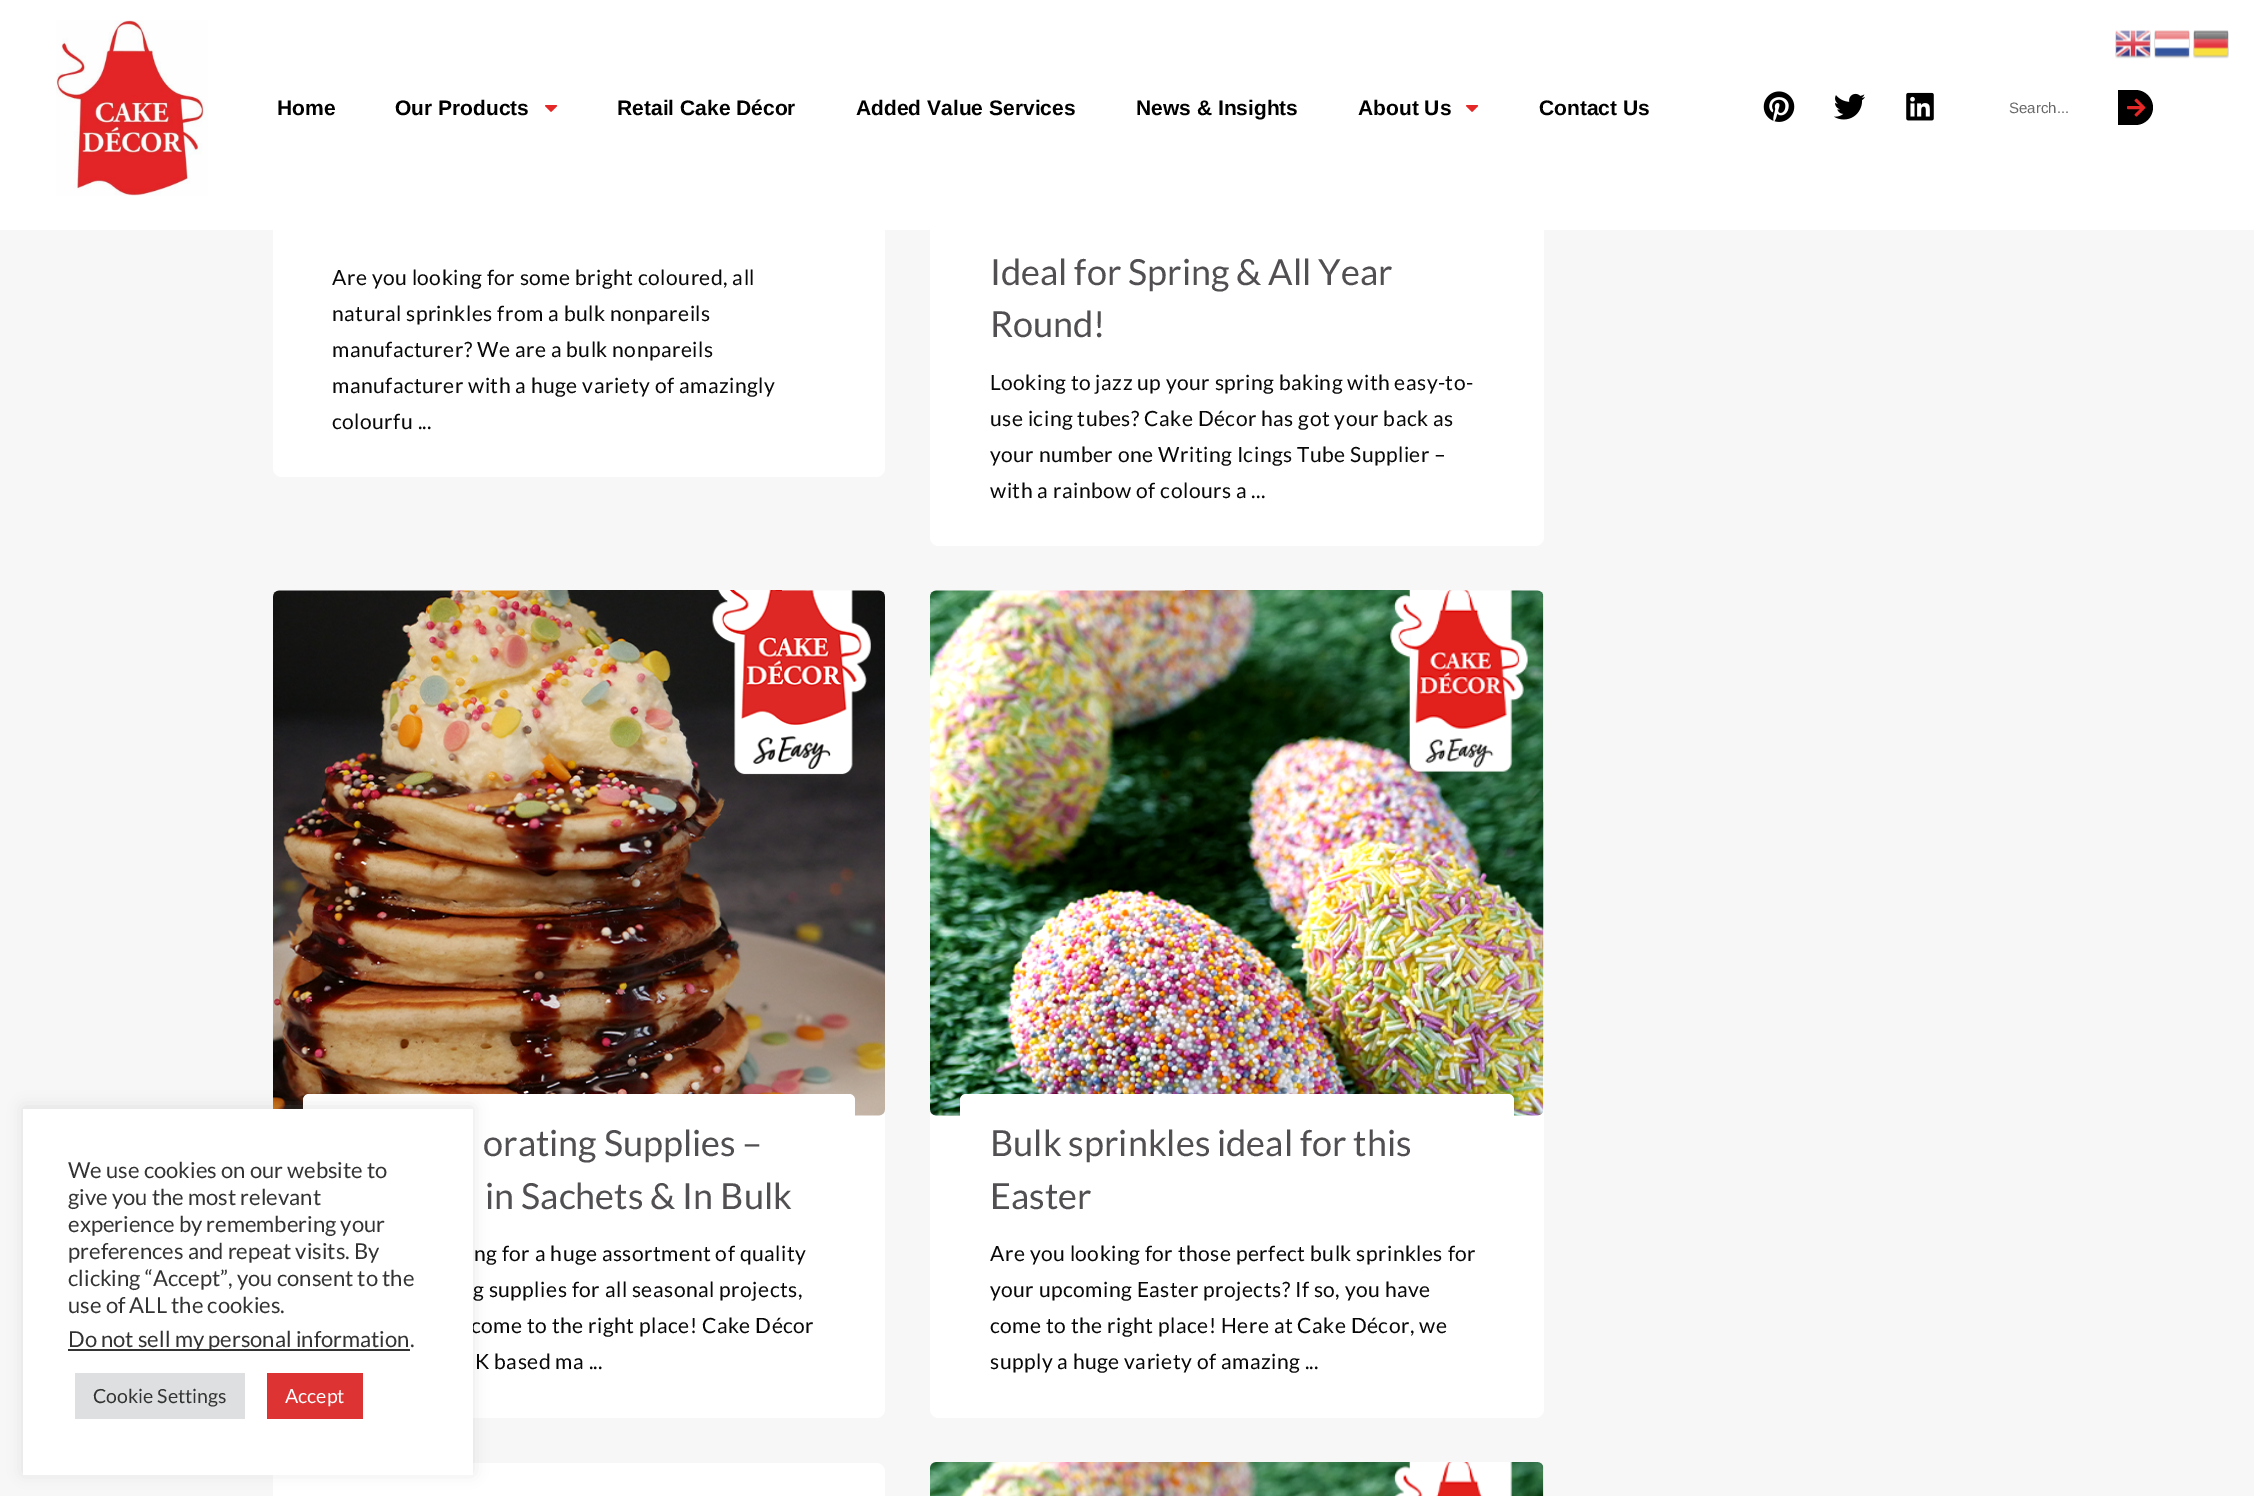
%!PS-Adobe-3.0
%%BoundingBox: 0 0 2254 1496
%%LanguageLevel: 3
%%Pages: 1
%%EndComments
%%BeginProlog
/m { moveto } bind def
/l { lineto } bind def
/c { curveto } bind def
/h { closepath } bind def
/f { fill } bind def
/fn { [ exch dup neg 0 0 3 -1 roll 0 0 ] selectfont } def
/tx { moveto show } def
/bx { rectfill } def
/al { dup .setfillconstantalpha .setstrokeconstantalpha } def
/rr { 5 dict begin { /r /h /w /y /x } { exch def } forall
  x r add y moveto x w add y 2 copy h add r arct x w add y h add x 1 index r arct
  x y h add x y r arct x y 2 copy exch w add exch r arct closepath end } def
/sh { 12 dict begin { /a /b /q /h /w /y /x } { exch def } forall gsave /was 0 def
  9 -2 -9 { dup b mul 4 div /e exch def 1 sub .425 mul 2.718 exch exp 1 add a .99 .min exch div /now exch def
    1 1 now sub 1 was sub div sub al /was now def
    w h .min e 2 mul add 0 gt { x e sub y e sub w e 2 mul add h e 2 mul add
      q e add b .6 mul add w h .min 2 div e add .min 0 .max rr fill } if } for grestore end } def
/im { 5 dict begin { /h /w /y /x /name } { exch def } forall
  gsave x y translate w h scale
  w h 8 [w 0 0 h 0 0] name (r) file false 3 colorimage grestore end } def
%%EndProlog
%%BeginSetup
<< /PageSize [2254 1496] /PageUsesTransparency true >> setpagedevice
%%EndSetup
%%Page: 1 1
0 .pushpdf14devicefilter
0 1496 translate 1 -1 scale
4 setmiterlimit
0.969 setgray
0 0 2254 1496 bx
1 setgray
273 -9 612 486 9 rr f
930 -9 614 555 9 rr f
0 0 2254 230 bx
(image0.raw) 2115 30 36 29 im
(image1.raw) 2154 30 36 29 im
(image2.raw) 2193 30 36 29 im
(image3.raw) 56 20 152 176 im
/LiberationSans-Bold 21 fn
0 setgray
(Home) 277 115 tx
(Our Products) 395 115 tx
(image4.raw) 545 105 13 7 im
(Retail Cake Décor) 617 115 tx
(Added Value Services) 856 115 tx
(News & Insights) 1136 115 tx
(About Us) 1358 115 tx
(image4.raw) 1466 105 13 7 im
(Contact Us) 1539 115 tx
(image5.raw) 1763 91 32 31 im
(image6.raw) 1834 93 31 27 im
(image7.raw) 1906 92 28 29 im
/LiberationSans-Regular 15 fn
0.412 setgray
(Search...) 2009 113 tx
0 setgray
2118 90 m 2135.5 90 l 2145 90 2153 98 2153 107.5 c 2153 117 2145 125 2135.5 125 c 2118 125 l h f
(image8.raw) 2127 98 19 19 im
1 setgray
273 591 612 827 9 rr f
(image9.raw) 273 590 612 526 im
303 1094 552 324 6 rr f
273 1463 612 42 9 rr f
0.675 0.671 0.671 setrgbcolor
23 1107 450 366 0 7.5 0.3 sh
/Lato-Regular 21 fn
0.035 0.031 0.035 setrgbcolor
471 1333 m 0.45 0 (come to the right place! Cake Décor) ashow
1 setgray
23 1109 450 366 bx
/Lato-Regular 22 fn
0.2 setgray
(We use cookies on our website to) 68 1178 tx
(give you the most relevant) 68 1205 tx
(experience by remembering your) 68 1232 tx
(preferences and repeat visits. By) 68 1259 tx
(clicking “Accept”, you consent to the) 68 1286 tx
(use of ALL the cookies.) 68 1313 tx
68 1349 342 2 bx
(Do not sell my personal information.) 68 1347 tx
0.871 0.875 0.878 setrgbcolor
75 1373 170 46 bx
/Lato-Regular 19.5 fn
0.2 setgray
(Cookie Settings) 93 1403 tx
0.867 0.2 0.2 setrgbcolor
267 1373 96 46 bx
1 setgray
(Accept) 285 1403 tx
/Lato-Regular 21 fn
0.035 0.031 0.035 setrgbcolor
332 285 m 0.45 0 (Are you looking for some bright coloured, all) ashow
332 321 m 0.45 0 (natural sprinkles from a bulk nonpareils) ashow
332 357 m 0.45 0 (manufacturer? We are a bulk nonpareils) ashow
332 393 m 0.45 0 (manufacturer with a huge variety of amazingly) ashow
332 429 m 0.45 0 (colourfu ...) ashow
/Lato-Regular 36 fn
0.318 0.31 0.318 setrgbcolor
(Ideal for Spring & All Year) 990 285 tx
(Round!) 990 337 tx
/Lato-Regular 21 fn
0.035 0.031 0.035 setrgbcolor
990 390 m 0.45 0 (Looking to jazz up your spring baking with easy-to-) ashow
990 426 m 0.45 0 (use icing tubes? Cake Décor has got your back as) ashow
990 462 m 0.45 0 (your number one Writing Icings Tube Supplier –) ashow
990 498 m 0.45 0 (with a rainbow of colours a ...) ashow
/Lato-Regular 36 fn
0.318 0.31 0.318 setrgbcolor
(orating Supplies –) 483 1156 tx
(in Sachets & In Bulk) 485 1209 tx
/Lato-Regular 21 fn
0.035 0.031 0.035 setrgbcolor
474 1261 m 0.45 0 (ng for a huge assortment of quality) ashow
473 1297 m 0.45 0 (g supplies for all seasonal projects,) ashow
475 1369 m 0.45 0 (K based ma ...) ashow
1 setgray
930 591 614 827 9 rr f
(image10.raw) 930 590 614 526 im
960 1094 554 324 6 rr f
/Lato-Regular 36 fn
0.318 0.31 0.318 setrgbcolor
(Bulk sprinkles ideal for this) 990 1156 tx
(Easter) 990 1209 tx
/Lato-Regular 21 fn
0.035 0.031 0.035 setrgbcolor
990 1261 m 0.45 0 (Are you looking for those perfect bulk sprinkles for) ashow
990 1297 m 0.45 0 (your upcoming Easter projects? If so, you have) ashow
990 1333 m 0.45 0 (come to the right place! Here at Cake Décor, we) ashow
990 1369 m 0.45 0 (supply a huge variety of amazing ...) ashow
1 setgray
930 1463 614 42 9 rr f
(image11.raw) 930 1462 614 34 im
.poppdf14devicefilter showpage
%%EOF
